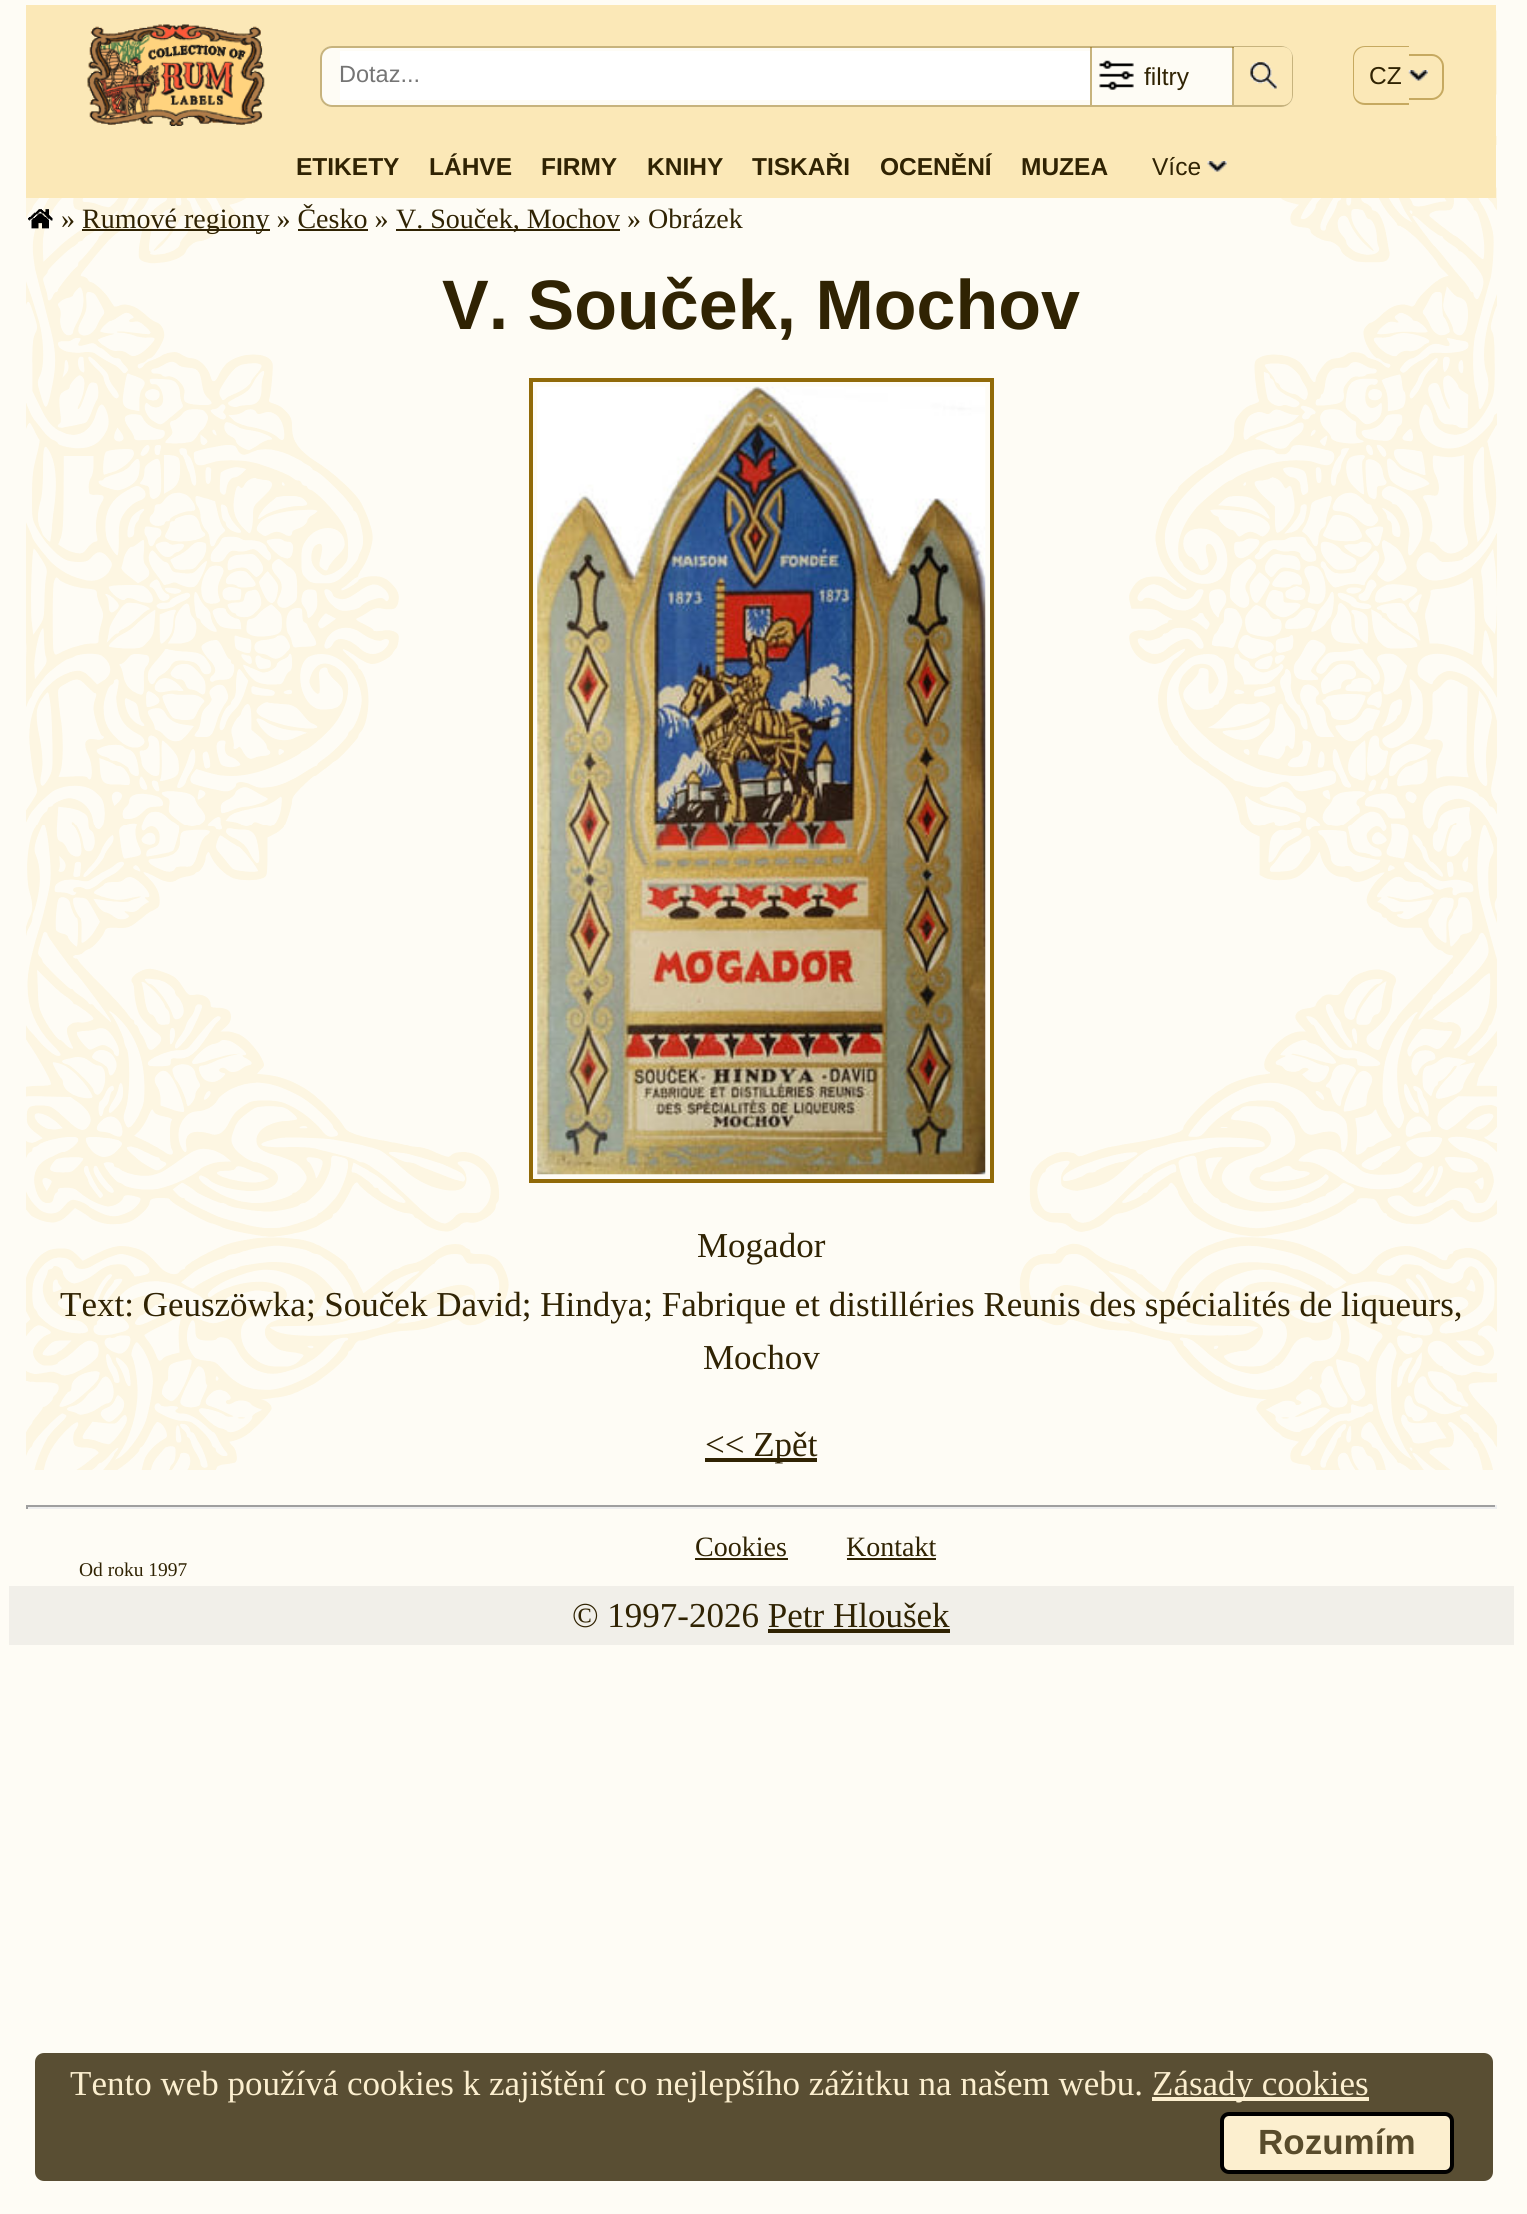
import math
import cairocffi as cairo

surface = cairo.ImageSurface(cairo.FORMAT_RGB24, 1527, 2214)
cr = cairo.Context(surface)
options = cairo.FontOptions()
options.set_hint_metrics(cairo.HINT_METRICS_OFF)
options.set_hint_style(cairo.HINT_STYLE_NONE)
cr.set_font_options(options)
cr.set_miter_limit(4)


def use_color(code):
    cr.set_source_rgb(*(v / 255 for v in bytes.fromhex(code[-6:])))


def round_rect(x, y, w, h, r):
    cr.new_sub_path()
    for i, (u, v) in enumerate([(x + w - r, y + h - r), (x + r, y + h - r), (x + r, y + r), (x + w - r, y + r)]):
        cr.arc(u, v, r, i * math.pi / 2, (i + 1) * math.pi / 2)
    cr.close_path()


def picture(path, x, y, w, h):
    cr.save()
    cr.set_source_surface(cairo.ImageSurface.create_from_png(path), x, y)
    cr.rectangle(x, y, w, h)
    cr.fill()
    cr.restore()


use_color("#fefcf5")
cr.paint()
picture("img1.png", 26, 29, 1471, 1441)
use_color("#fbe8b7")
cr.rectangle(26, 5, 1470, 193)
cr.fill()
picture("img2.png", 87, 24, 178, 102)
use_color("#fefcf5")
round_rect(320, 46, 973, 61, 12)
cr.fill()
round_rect(321, 47, 971, 59, 11)
cr.set_source_rgba(0.569, 0.416, 0.031, 0.5)
cr.stroke()
use_color("#ffffff")
cr.rectangle(340, 51, 750, 49)
cr.fill()
cr.select_font_face("Liberation Sans")
cr.set_font_size(23.5)
use_color("#757575")
cr.move_to(339, 82)
cr.show_text("Dotaz...")
cr.set_source_rgba(0.569, 0.416, 0.031, 0.5)
cr.rectangle(1232, 47, 2, 58)
cr.fill()
cr.rectangle(1090, 47, 2, 58)
cr.fill()
picture("img3.png", 1099, 60, 35, 30)
cr.set_font_size(24.5)
use_color("#302303")
cr.move_to(1144, 85)
cr.show_text("filtry")
use_color("#fbe8b7")
cr.new_path()
cr.move_to(1234, 47)
cr.line_to(1283, 47)
cr.curve_to(1288, 47, 1292, 51, 1292, 56)
cr.line_to(1292, 96)
cr.curve_to(1292, 101, 1288, 105, 1283, 105)
cr.line_to(1234, 105)
cr.close_path()
cr.fill()
picture("img4.png", 1250, 62, 27, 27)
use_color("#c6a960")
cr.set_fill_rule(cairo.FILL_RULE_EVEN_ODD)
cr.new_path()
cr.move_to(1365, 46)
cr.line_to(1409, 46)
cr.line_to(1409, 105)
cr.line_to(1365, 105)
cr.curve_to(1358, 105, 1353, 100, 1353, 93)
cr.line_to(1353, 58)
cr.curve_to(1353, 51, 1358, 46, 1365, 46)
cr.close_path()
cr.move_to(1365, 47)
cr.line_to(1409, 47)
cr.line_to(1409, 103)
cr.line_to(1365, 103)
cr.curve_to(1359, 103, 1354, 99, 1354, 93)
cr.line_to(1354, 58)
cr.curve_to(1354, 52, 1359, 47, 1365, 47)
cr.close_path()
cr.fill()
use_color("#302303")
cr.move_to(1369, 84)
cr.show_text("CZ")
use_color("#c6a960")
cr.new_path()
cr.move_to(1409, 54)
cr.line_to(1432, 54)
cr.curve_to(1438, 54, 1444, 60, 1444, 66)
cr.line_to(1444, 88)
cr.curve_to(1444, 94, 1438, 100, 1432, 100)
cr.line_to(1409, 100)
cr.close_path()
cr.move_to(1409, 56)
cr.line_to(1432, 56)
cr.curve_to(1437, 56, 1442, 61, 1442, 66)
cr.line_to(1442, 88)
cr.curve_to(1442, 93, 1437, 98, 1432, 98)
cr.line_to(1409, 98)
cr.close_path()
cr.fill()
picture("img5.png", 1408, 70, 20, 11)
cr.select_font_face("Liberation Sans", cairo.FONT_SLANT_NORMAL, cairo.FONT_WEIGHT_BOLD)
use_color("#302303")
cr.move_to(296, 175)
cr.show_text("ETIKETY")
cr.move_to(429, 175)
cr.show_text("LÁHVE")
cr.move_to(541, 175)
cr.show_text("FIRMY")
cr.move_to(647, 175)
cr.show_text("KNIHY")
cr.move_to(752, 175)
cr.show_text("TISKAŘI")
cr.move_to(880, 175)
cr.show_text("OCENĚNÍ")
cr.move_to(1021, 175)
cr.show_text("MUZEA")
cr.select_font_face("Liberation Sans")
cr.move_to(1152, 175)
cr.show_text("Více")
picture("img6.png", 1207, 161, 20, 11)
picture("img7.png", 28, 209, 25, 20)
cr.select_font_face("Liberation Serif")
cr.set_font_size(28)
cr.move_to(61, 228)
cr.show_text("»")
cr.rectangle(82, 229, 188, 2)
cr.fill()
cr.move_to(82, 228)
cr.show_text("Rumové regiony » Česko »")
cr.rectangle(396, 229, 224, 2)
cr.fill()
cr.move_to(396, 228)
cr.show_text("V. Souček, Mochov » Obrázek")
cr.rectangle(298, 229, 70, 2)
cr.fill()
cr.select_font_face("Liberation Sans", cairo.FONT_SLANT_NORMAL, cairo.FONT_WEIGHT_BOLD)
cr.set_font_size(70)
cr.move_to(442, 329)
cr.show_text("V. Souček, Mochov")
cr.rectangle(531, 380, 461, 801)
use_color("#916a08")
cr.set_line_width(4)
cr.stroke()
picture("img8.png", 537, 386, 449, 789)
cr.select_font_face("Liberation Serif")
cr.set_font_size(35)
use_color("#302303")
cr.move_to(697, 1257)
cr.show_text("Mogador")
cr.move_to(60, 1316)
cr.show_text("Text: Geuszöwka; Souček David; Hindya; Fabrique et distilléries Reunis des spécialités de liqueurs,")
cr.move_to(703, 1369)
cr.show_text("Mochov")
cr.rectangle(705, 1458, 112, 4)
cr.fill()
cr.move_to(705, 1456)
cr.show_text("<< Zpět")
use_color("#9f9f9f")
cr.rectangle(26, 1505, 1470, 2)
cr.fill()
use_color("#eeeeee")
cr.rectangle(1495, 1505, 2, 4)
cr.fill()
cr.rectangle(26, 1507, 1470, 2)
cr.fill()
use_color("#9f9f9f")
cr.rectangle(26, 1505, 2, 4)
cr.fill()
cr.set_font_size(28)
use_color("#302303")
cr.move_to(695, 1556)
cr.show_text("Cookies")
cr.rectangle(695, 1558, 93, 2)
cr.fill()
cr.move_to(846, 1556)
cr.show_text("Kontakt")
cr.rectangle(847, 1558, 89, 2)
cr.fill()
cr.set_font_size(19.5)
cr.move_to(79, 1576)
cr.show_text("Od roku 1997")
use_color("#f1efe9")
cr.rectangle(9, 1586, 1505, 59)
cr.fill()
cr.set_font_size(35)
use_color("#302303")
cr.move_to(572, 1627)
cr.show_text("© 1997-2026 Petr Hloušek")
cr.rectangle(768, 1629, 182, 4)
cr.fill()
use_color("#594e33")
round_rect(35, 2053, 1458, 128, 9)
cr.fill()
use_color("#fcefcf")
cr.move_to(70, 2095)
cr.show_text("Tento web používá cookies k zajištění co nejlepšího zážitku na našem webu.")
cr.rectangle(1152, 2097, 217, 4)
cr.fill()
cr.move_to(1152, 2095)
cr.show_text("Zásady cookies")
round_rect(1222, 2114, 230, 58, 7)
cr.fill_preserve()
use_color("#000000")
cr.stroke()
cr.select_font_face("Liberation Sans", cairo.FONT_SLANT_NORMAL, cairo.FONT_WEIGHT_BOLD)
use_color("#594c2c")
cr.move_to(1258, 2154)
cr.show_text("Rozumím")
surface.write_to_png("result.png")
